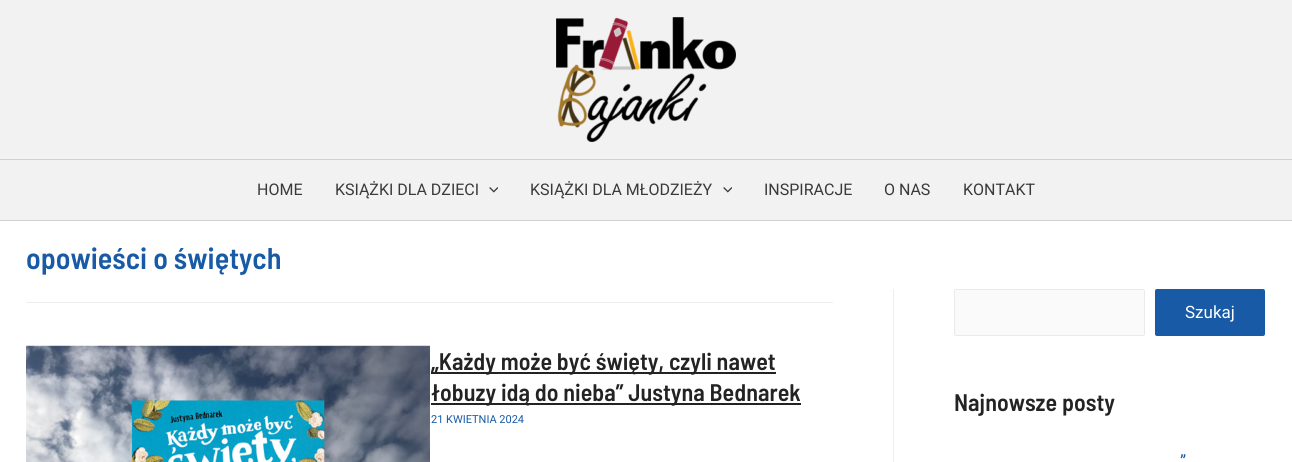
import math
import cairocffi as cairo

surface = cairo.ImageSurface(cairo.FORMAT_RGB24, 1292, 462)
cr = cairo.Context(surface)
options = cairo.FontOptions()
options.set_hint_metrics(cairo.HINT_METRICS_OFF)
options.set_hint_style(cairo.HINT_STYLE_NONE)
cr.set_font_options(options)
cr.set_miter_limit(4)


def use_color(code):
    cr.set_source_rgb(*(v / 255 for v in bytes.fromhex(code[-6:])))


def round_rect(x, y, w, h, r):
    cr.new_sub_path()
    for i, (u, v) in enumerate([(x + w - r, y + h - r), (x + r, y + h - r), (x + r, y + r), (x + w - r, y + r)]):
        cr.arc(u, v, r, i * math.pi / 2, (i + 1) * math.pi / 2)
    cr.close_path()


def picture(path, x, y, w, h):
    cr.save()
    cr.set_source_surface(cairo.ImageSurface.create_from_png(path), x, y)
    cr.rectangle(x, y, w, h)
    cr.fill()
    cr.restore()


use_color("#ffffff")
cr.paint()
use_color("#f2f2f2")
cr.rectangle(0, 0, 1292, 159)
cr.fill()
use_color("#d1d1d1")
cr.rectangle(0, 159, 1292, 1)
cr.fill()
picture("img1.png", 556, 17, 180, 125)
use_color("#f2f2f2")
cr.rectangle(0, 160, 1292, 60)
cr.fill()
use_color("#d1d1d1")
cr.rectangle(0, 220, 1292, 1)
cr.fill()
cr.select_font_face("Roboto")
cr.set_font_size(16)
use_color("#3a3a3a")
cr.move_to(257, 195)
cr.show_text("HOME")
cr.move_to(335, 195)
cr.show_text("KSIĄŻKI DLA DZIECI")
picture("img2.png", 489, 187, 9, 6)
cr.move_to(530, 195)
cr.show_text("KSIĄŻKI DLA MŁODZIEŻY")
picture("img2.png", 723, 187, 9, 6)
cr.move_to(764, 195)
cr.show_text("INSPIRACJE")
cr.move_to(884, 195)
cr.show_text("O NAS")
cr.move_to(963, 195)
cr.show_text("KONTAKT")
use_color("#eeeeee")
cr.rectangle(893, 289, 1, 173)
cr.fill()
cr.rectangle(26, 302, 807, 1)
cr.fill()
cr.select_font_face("Barlow Semi Condensed SemiBold")
cr.set_font_size(30)
use_color("#185aa5")
cr.move_to(26, 269)
cr.show_text("opowieści o świętych")
picture("img3.png", 26, 345, 404, 117)
use_color("#232323")
cr.rectangle(431, 372, 345, 2)
cr.fill()
cr.set_font_size(24)
cr.move_to(431, 370)
cr.show_text("„Każdy może być święty, czyli nawet")
cr.rectangle(431, 403, 370, 2)
cr.fill()
cr.move_to(431, 401)
cr.show_text("łobuzy idą do nieba” Justyna Bednarek")
cr.select_font_face("Roboto")
cr.set_font_size(11)
use_color("#185aa5")
cr.move_to(431, 423)
cr.show_text("21 KWIETNIA 2024")
use_color("#fafafa")
round_rect(954.5, 289.5, 190, 46, 1.5)
cr.fill_preserve()
use_color("#eaeaea")
cr.set_line_width(1)
cr.stroke()
use_color("#185aa5")
round_rect(1155, 289, 110, 47, 2)
cr.fill()
cr.set_font_size(17)
use_color("#ffffff")
cr.move_to(1185, 318)
cr.show_text("Szukaj")
cr.select_font_face("Barlow Semi Condensed SemiBold")
cr.set_font_size(24)
use_color("#232323")
cr.move_to(954, 411)
cr.show_text("Najnowsze posty")
cr.select_font_face("Roboto")
cr.set_font_size(17)
use_color("#185aa5")
cr.move_to(1180, 467)
cr.show_text("”")
surface.write_to_png("result.png")
